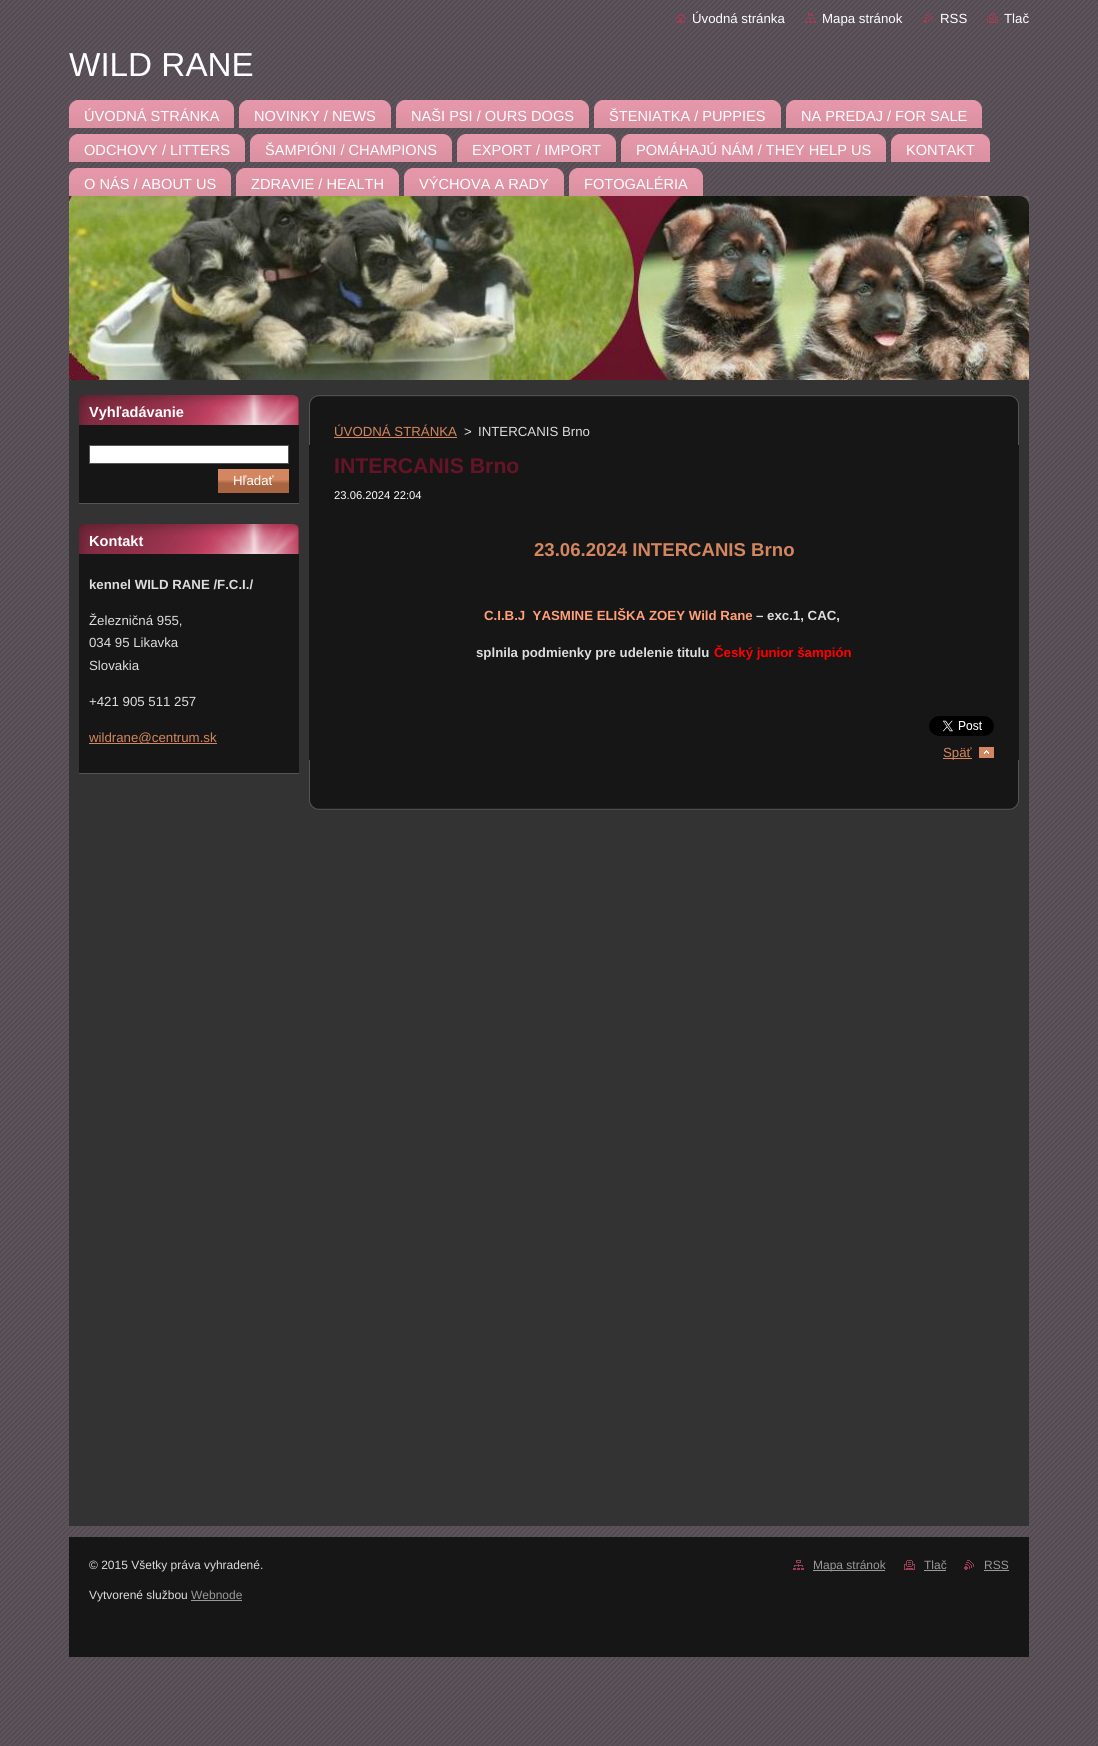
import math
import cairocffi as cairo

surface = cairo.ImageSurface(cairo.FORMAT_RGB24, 1098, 1746)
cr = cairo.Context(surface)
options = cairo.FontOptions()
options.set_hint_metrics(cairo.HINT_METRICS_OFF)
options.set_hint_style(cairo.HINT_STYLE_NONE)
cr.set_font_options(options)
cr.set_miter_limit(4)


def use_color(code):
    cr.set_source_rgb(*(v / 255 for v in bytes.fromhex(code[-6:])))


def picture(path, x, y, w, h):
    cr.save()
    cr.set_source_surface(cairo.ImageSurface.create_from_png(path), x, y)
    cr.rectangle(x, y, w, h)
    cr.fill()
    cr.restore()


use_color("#ffffff")
cr.paint()
picture("img1.png", 0, 0, 1098, 1746)
use_color("#333333")
cr.rectangle(69, 380, 960, 1146)
cr.fill()
picture("img2.png", 675, 13, 11, 10)
cr.select_font_face("Liberation Sans")
cr.set_font_size(13.25)
use_color("#ffffff")
cr.move_to(692, 23)
cr.show_text("Úvodná stránka")
picture("img3.png", 805, 13, 11, 10)
cr.move_to(822, 23)
cr.show_text("Mapa stránok")
picture("img4.png", 923, 13, 10, 10)
cr.move_to(940, 23)
cr.show_text("RSS")
picture("img5.png", 987, 13, 11, 10)
cr.move_to(1004, 23)
cr.show_text("Tlač")
cr.set_font_size(33.25)
cr.move_to(69, 76)
cr.show_text("WILD RANE")
picture("img6.png", 69, 100, 165, 28)
picture("img7.png", 69, 100, 8, 8)
picture("img8.png", 226, 100, 8, 8)
cr.set_font_size(14.6)
cr.move_to(84, 121)
cr.show_text("ÚVODNÁ STRÁNKA")
picture("img9.png", 239, 100, 152, 28)
picture("img7.png", 239, 100, 8, 8)
picture("img8.png", 383, 100, 8, 8)
cr.move_to(254, 121)
cr.show_text("NOVINKY / NEWS")
picture("img10.png", 396, 100, 193, 28)
picture("img7.png", 396, 100, 8, 8)
picture("img8.png", 581, 100, 8, 8)
cr.move_to(411, 121)
cr.show_text("NAŠI PSI / OURS DOGS")
picture("img11.png", 594, 100, 187, 28)
picture("img7.png", 594, 100, 8, 8)
picture("img8.png", 773, 100, 8, 8)
cr.move_to(609, 121)
cr.show_text("ŠTENIATKA / PUPPIES")
picture("img12.png", 786, 100, 196, 28)
picture("img7.png", 786, 100, 8, 8)
picture("img8.png", 974, 100, 8, 8)
cr.move_to(801, 121)
cr.show_text("NA PREDAJ / FOR SALE")
picture("img13.png", 69, 134, 176, 28)
picture("img7.png", 69, 134, 8, 8)
picture("img8.png", 237, 134, 8, 8)
cr.move_to(84, 155)
cr.show_text("ODCHOVY / LITTERS")
picture("img14.png", 250, 134, 202, 28)
picture("img7.png", 250, 134, 8, 8)
picture("img8.png", 444, 134, 8, 8)
cr.move_to(265, 155)
cr.show_text("ŠAMPIÓNI / CHAMPIONS")
picture("img15.png", 457, 134, 159, 28)
picture("img7.png", 457, 134, 8, 8)
picture("img8.png", 608, 134, 8, 8)
cr.move_to(472, 155)
cr.show_text("EXPORT / IMPORT")
picture("img16.png", 621, 134, 265, 28)
picture("img7.png", 621, 134, 8, 8)
picture("img8.png", 878, 134, 8, 8)
cr.move_to(636, 155)
cr.show_text("POMÁHAJÚ NÁM / THEY HELP US")
picture("img17.png", 891, 134, 99, 28)
picture("img7.png", 891, 134, 8, 8)
picture("img8.png", 982, 134, 8, 8)
cr.move_to(906, 155)
cr.show_text("KONTAKT")
picture("img18.png", 69, 168, 162, 28)
picture("img7.png", 69, 168, 8, 8)
picture("img8.png", 223, 168, 8, 8)
cr.move_to(84, 189)
cr.show_text("O NÁS / ABOUT US")
picture("img19.png", 236, 168, 163, 28)
picture("img7.png", 236, 168, 8, 8)
picture("img8.png", 391, 168, 8, 8)
cr.move_to(251, 189)
cr.show_text("ZDRAVIE / HEALTH")
picture("img20.png", 404, 168, 160, 28)
picture("img7.png", 404, 168, 8, 8)
picture("img8.png", 556, 168, 8, 8)
cr.move_to(419, 189)
cr.show_text("VÝCHOVA A RADY")
picture("img21.png", 569, 168, 134, 28)
picture("img7.png", 569, 168, 8, 8)
picture("img8.png", 695, 168, 8, 8)
cr.move_to(584, 189)
cr.show_text("FOTOGALÉRIA")
picture("img22.png", 69, 196, 960, 184)
picture("img23.png", 1020, 196, 9, 9)
use_color("#161616")
cr.rectangle(79, 425, 220, 78)
cr.fill()
use_color("#555555")
cr.rectangle(79, 503, 220, 1)
cr.fill()
picture("img24.png", 79, 395, 220, 30)
cr.select_font_face("Liberation Sans", cairo.FONT_SLANT_NORMAL, cairo.FONT_WEIGHT_BOLD)
use_color("#ffffff")
cr.move_to(89, 417)
cr.show_text("Vyhľadávanie")
cr.rectangle(89.5, 445.5, 199, 18)
cr.fill_preserve()
use_color("#555555")
cr.set_line_width(1)
cr.stroke()
picture("img25.png", 218, 469, 71, 24)
cr.select_font_face("Liberation Sans")
cr.set_font_size(13.25)
use_color("#ffffff")
cr.move_to(233, 485)
cr.show_text("Hľadať")
use_color("#161616")
cr.rectangle(79, 554, 220, 219)
cr.fill()
use_color("#555555")
cr.rectangle(79, 773, 220, 1)
cr.fill()
picture("img24.png", 79, 524, 220, 30)
cr.select_font_face("Liberation Sans", cairo.FONT_SLANT_NORMAL, cairo.FONT_WEIGHT_BOLD)
cr.set_font_size(14.6)
use_color("#ffffff")
cr.move_to(89, 546)
cr.show_text("Kontakt")
cr.set_font_size(13.25)
use_color("#dddddd")
cr.move_to(89, 589)
cr.show_text("kennel WILD RANE /F.C.I./")
cr.select_font_face("Liberation Sans")
cr.move_to(89, 625)
cr.show_text("Železničná 955,")
cr.move_to(89, 647)
cr.show_text("034 95 Likavka")
cr.move_to(89, 670)
cr.show_text("Slovakia")
cr.move_to(89, 706)
cr.show_text("+421 905 511 257")
use_color("#d3865f")
cr.rectangle(89, 743, 128, 1)
cr.fill()
cr.move_to(89, 742)
cr.show_text("wildrane@centrum.sk")
picture("img26.png", 309, 395, 710, 50)
picture("img27.png", 309, 760, 710, 50)
use_color("#161616")
cr.rectangle(309, 445, 710, 315)
cr.fill()
use_color("#d3865f")
cr.move_to(334, 436)
cr.show_text("ÚVODNÁ STRÁNKA")
cr.rectangle(334, 437, 123, 1)
cr.fill()
use_color("#dddddd")
cr.move_to(464, 436)
cr.show_text(">")
cr.move_to(478, 436)
cr.show_text("INTERCANIS Brno")
cr.select_font_face("Liberation Sans", cairo.FONT_SLANT_NORMAL, cairo.FONT_WEIGHT_BOLD)
cr.set_font_size(21.25)
use_color("#651427")
cr.move_to(334, 473)
cr.show_text("INTERCANIS Brno")
cr.select_font_face("Liberation Sans")
cr.set_font_size(11.25)
use_color("#ffffff")
cr.move_to(334, 499)
cr.show_text("23.06.2024 22:04")
cr.select_font_face("Liberation Sans", cairo.FONT_SLANT_NORMAL, cairo.FONT_WEIGHT_BOLD)
cr.set_font_size(18.6)
use_color("#d3865f")
cr.move_to(534, 556)
cr.show_text("23.06.2024 INTERCANIS Brno")
cr.set_font_size(13.25)
use_color("#ffa07a")
cr.move_to(484, 620)
cr.show_text("C.I.B.J  YASMINE ELIŠKA ZOEY Wild Rane")
use_color("#dddddd")
cr.move_to(756, 620)
cr.show_text("– exc.1, CAC,")
cr.move_to(476, 657)
cr.show_text("splnila podmienky pre udelenie titulu")
use_color("#ff0000")
cr.move_to(714, 657)
cr.show_text("Český junior šampión")
picture("img28.png", 929, 716, 65, 20)
picture("img29.png", 979, 747, 15, 11)
use_color("#d3865f")
cr.rectangle(943, 758, 29, 1)
cr.fill()
cr.select_font_face("Liberation Sans")
cr.move_to(943, 757)
cr.show_text("Späť")
use_color("#161616")
cr.rectangle(69, 1537, 960, 120)
cr.fill()
cr.set_font_size(12)
use_color("#dddddd")
cr.move_to(89, 1569)
cr.show_text("© 2015 Všetky práva vyhradené.")
cr.move_to(89, 1599)
cr.show_text("Vytvorené službou")
use_color("#999999")
cr.move_to(191, 1599)
cr.show_text("Webnode")
cr.rectangle(191, 1600, 51, 1)
cr.fill()
picture("img30.png", 793, 1560, 11, 10)
cr.rectangle(813, 1570, 72, 1)
cr.fill()
cr.move_to(813, 1569)
cr.show_text("Mapa stránok")
picture("img31.png", 904, 1560, 11, 10)
cr.move_to(924, 1569)
cr.show_text("Tlač")
cr.rectangle(924, 1570, 22, 1)
cr.fill()
picture("img32.png", 964, 1560, 10, 10)
cr.move_to(984, 1569)
cr.show_text("RSS")
cr.rectangle(984, 1570, 25, 1)
cr.fill()
surface.write_to_png("result.png")
